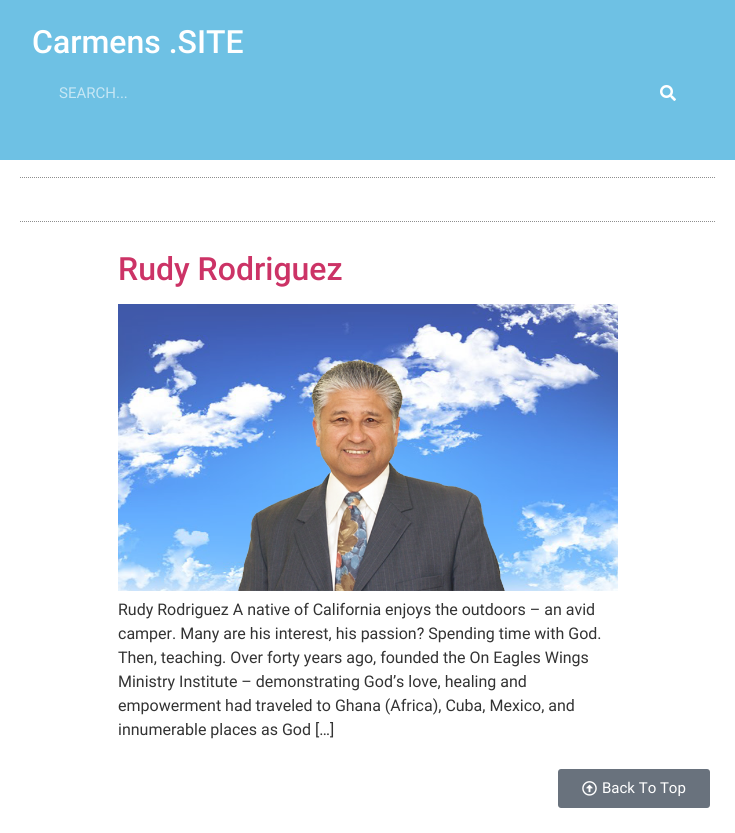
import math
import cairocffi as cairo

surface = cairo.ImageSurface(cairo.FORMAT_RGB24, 735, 833)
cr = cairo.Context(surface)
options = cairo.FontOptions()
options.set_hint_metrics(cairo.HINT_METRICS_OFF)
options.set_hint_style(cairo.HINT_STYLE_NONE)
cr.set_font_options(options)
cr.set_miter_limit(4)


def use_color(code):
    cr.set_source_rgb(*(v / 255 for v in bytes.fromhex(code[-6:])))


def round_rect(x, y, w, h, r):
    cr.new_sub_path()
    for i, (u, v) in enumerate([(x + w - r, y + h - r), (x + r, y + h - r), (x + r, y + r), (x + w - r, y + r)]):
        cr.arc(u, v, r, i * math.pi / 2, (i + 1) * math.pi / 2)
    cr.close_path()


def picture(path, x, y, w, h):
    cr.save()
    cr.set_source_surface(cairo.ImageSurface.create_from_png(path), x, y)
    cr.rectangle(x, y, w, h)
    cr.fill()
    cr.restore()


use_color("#ffffff")
cr.paint()
use_color("#6ec1e4")
cr.rectangle(0, 0, 735, 160)
cr.fill()
cr.select_font_face("Roboto Medium")
cr.set_font_size(32)
use_color("#ffffff")
cr.move_to(32, 53)
cr.show_text("Carmens .SITE")
cr.select_font_face("Roboto")
cr.set_font_size(15)
use_color("#c5e6f4")
cr.move_to(59, 98)
cr.show_text("SEARCH...")
picture("img1.png", 660, 85, 16, 16)
cr.new_path()
cr.move_to(20, 177.5)
cr.line_to(715, 177.5)
use_color("#8e8e8e")
cr.set_line_width(1)
cr.set_dash([1, 1])
cr.stroke()
cr.new_path()
cr.move_to(20, 221.5)
cr.line_to(715, 221.5)
cr.stroke()
cr.select_font_face("Roboto Medium")
cr.set_font_size(32)
use_color("#cc3366")
cr.move_to(118, 280)
cr.show_text("Rudy Rodriguez")
picture("img2.png", 118, 304, 500, 287)
cr.select_font_face("Roboto")
cr.set_font_size(16)
use_color("#333333")
cr.move_to(118, 615)
cr.show_text("Rudy Rodriguez A native of California enjoys the outdoors – an avid")
cr.move_to(118, 639)
cr.show_text("camper. Many are his interest, his passion? Spending time with God.")
cr.move_to(118, 663)
cr.show_text("Then, teaching. Over forty years ago, founded the On Eagles Wings")
cr.move_to(118, 687)
cr.show_text("Ministry Institute – demonstrating God’s love, healing and")
cr.move_to(118, 711)
cr.show_text("empowerment had traveled to Ghana (Africa), Cuba, Mexico, and")
cr.move_to(118, 735)
cr.show_text("innumerable places as God […]")
use_color("#69727d")
round_rect(558, 769, 152, 39, 3)
cr.fill()
picture("img3.png", 582, 781, 15, 15)
cr.set_font_size(15)
use_color("#ffffff")
cr.move_to(602, 793)
cr.show_text("Back To Top")
surface.write_to_png("result.png")
